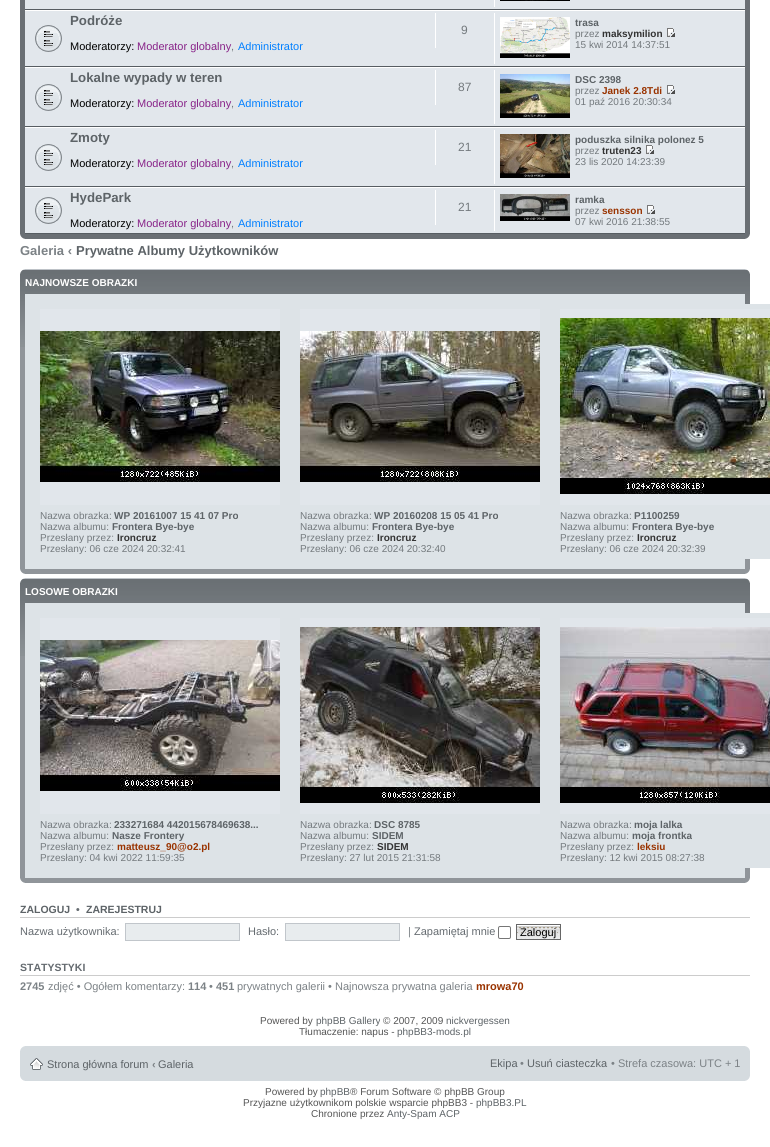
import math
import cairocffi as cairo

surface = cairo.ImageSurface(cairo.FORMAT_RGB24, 770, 1147)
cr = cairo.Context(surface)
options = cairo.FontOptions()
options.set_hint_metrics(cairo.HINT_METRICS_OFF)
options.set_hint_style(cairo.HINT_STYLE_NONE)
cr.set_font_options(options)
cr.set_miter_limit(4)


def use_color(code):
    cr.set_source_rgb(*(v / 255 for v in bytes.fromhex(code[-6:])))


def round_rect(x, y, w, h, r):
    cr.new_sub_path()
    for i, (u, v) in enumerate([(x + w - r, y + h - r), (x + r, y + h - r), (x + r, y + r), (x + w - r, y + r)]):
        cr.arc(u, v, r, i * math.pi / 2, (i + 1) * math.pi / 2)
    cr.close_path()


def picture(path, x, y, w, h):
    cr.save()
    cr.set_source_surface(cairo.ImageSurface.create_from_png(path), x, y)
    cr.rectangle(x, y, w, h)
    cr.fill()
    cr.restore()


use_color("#ffffff")
cr.paint()
use_color("#6a6f74")
cr.rectangle(20, 0, 730, 239)
cr.fill()
use_color("#e2e7ec")
cr.rectangle(25, 0, 720, 233)
cr.fill()
use_color("#575d62")
cr.rectangle(25, 9, 720, 1)
cr.fill()
use_color("#ffffff")
cr.rectangle(494, 0, 1, 7)
cr.fill()
picture("img1.png", 500, 0, 70, 1)
cr.rectangle(25, 10, 720, 1)
cr.fill()
use_color("#575d62")
cr.rectangle(25, 66, 720, 1)
cr.fill()
picture("img2.png", 35, 25, 27, 27)
cr.select_font_face("Liberation Sans", cairo.FONT_SLANT_NORMAL, cairo.FONT_WEIGHT_BOLD)
cr.set_font_size(13.25)
use_color("#5d6367")
cr.move_to(70, 25)
cr.show_text("Podróże")
cr.select_font_face("Liberation Sans")
cr.set_font_size(11)
use_color("#000000")
cr.move_to(70, 50)
cr.show_text("Moderatorzy:")
use_color("#882288")
cr.move_to(137, 50)
cr.show_text("Moderator globalny")
use_color("#73797d")
cr.move_to(231, 50)
cr.show_text(",")
use_color("#007fff")
cr.move_to(238, 50)
cr.show_text("Administrator")
use_color("#ffffff")
cr.rectangle(435, 13, 1, 35)
cr.fill()
cr.set_font_size(12)
use_color("#73797d")
cr.move_to(461, 34)
cr.show_text("9")
use_color("#ffffff")
cr.rectangle(494, 13, 1, 51)
cr.fill()
picture("img3.png", 500, 17, 70, 41)
cr.select_font_face("Liberation Sans", cairo.FONT_SLANT_NORMAL, cairo.FONT_WEIGHT_BOLD)
cr.set_font_size(10)
use_color("#5d6367")
cr.move_to(575, 26)
cr.show_text("trasa")
cr.select_font_face("Liberation Sans")
use_color("#73797d")
cr.move_to(575, 37)
cr.show_text("przez")
cr.select_font_face("Liberation Sans", cairo.FONT_SLANT_NORMAL, cairo.FONT_WEIGHT_BOLD)
use_color("#333333")
cr.move_to(602, 37)
cr.show_text("maksymilion")
picture("img4.png", 667, 28, 8, 9)
cr.select_font_face("Liberation Sans")
use_color("#73797d")
cr.move_to(575, 48)
cr.show_text("15 kwi 2014 14:37:51")
use_color("#ffffff")
cr.rectangle(25, 67, 720, 1)
cr.fill()
use_color("#575d62")
cr.rectangle(25, 126, 720, 1)
cr.fill()
picture("img2.png", 35, 84, 27, 27)
cr.select_font_face("Liberation Sans", cairo.FONT_SLANT_NORMAL, cairo.FONT_WEIGHT_BOLD)
cr.set_font_size(13.25)
use_color("#5d6367")
cr.move_to(70, 82)
cr.show_text("Lokalne wypady w teren")
cr.select_font_face("Liberation Sans")
cr.set_font_size(11)
use_color("#000000")
cr.move_to(70, 107)
cr.show_text("Moderatorzy:")
use_color("#882288")
cr.move_to(137, 107)
cr.show_text("Moderator globalny")
use_color("#73797d")
cr.move_to(231, 107)
cr.show_text(",")
use_color("#007fff")
cr.move_to(238, 107)
cr.show_text("Administrator")
use_color("#ffffff")
cr.rectangle(435, 70, 1, 35)
cr.fill()
cr.set_font_size(12)
use_color("#73797d")
cr.move_to(458, 91)
cr.show_text("87")
use_color("#ffffff")
cr.rectangle(494, 70, 1, 54)
cr.fill()
picture("img5.png", 500, 74, 70, 44)
cr.select_font_face("Liberation Sans", cairo.FONT_SLANT_NORMAL, cairo.FONT_WEIGHT_BOLD)
cr.set_font_size(10)
use_color("#5d6367")
cr.move_to(575, 83)
cr.show_text("DSC 2398")
cr.select_font_face("Liberation Sans")
use_color("#73797d")
cr.move_to(575, 94)
cr.show_text("przez")
cr.select_font_face("Liberation Sans", cairo.FONT_SLANT_NORMAL, cairo.FONT_WEIGHT_BOLD)
use_color("#993300")
cr.move_to(602, 94)
cr.show_text("Janek 2.8Tdi")
picture("img4.png", 667, 85, 8, 9)
cr.select_font_face("Liberation Sans")
use_color("#73797d")
cr.move_to(575, 105)
cr.show_text("01 paź 2016 20:30:34")
use_color("#ffffff")
cr.rectangle(25, 127, 720, 1)
cr.fill()
use_color("#575d62")
cr.rectangle(25, 186, 720, 1)
cr.fill()
picture("img2.png", 35, 144, 27, 27)
cr.select_font_face("Liberation Sans", cairo.FONT_SLANT_NORMAL, cairo.FONT_WEIGHT_BOLD)
cr.set_font_size(13.25)
use_color("#5d6367")
cr.move_to(70, 142)
cr.show_text("Zmoty")
cr.select_font_face("Liberation Sans")
cr.set_font_size(11)
use_color("#000000")
cr.move_to(70, 167)
cr.show_text("Moderatorzy:")
use_color("#882288")
cr.move_to(137, 167)
cr.show_text("Moderator globalny")
use_color("#73797d")
cr.move_to(231, 167)
cr.show_text(",")
use_color("#007fff")
cr.move_to(238, 167)
cr.show_text("Administrator")
use_color("#ffffff")
cr.rectangle(435, 130, 1, 35)
cr.fill()
cr.set_font_size(12)
use_color("#73797d")
cr.move_to(458, 151)
cr.show_text("21")
use_color("#ffffff")
cr.rectangle(494, 130, 1, 54)
cr.fill()
picture("img6.png", 500, 134, 70, 44)
cr.select_font_face("Liberation Sans", cairo.FONT_SLANT_NORMAL, cairo.FONT_WEIGHT_BOLD)
cr.set_font_size(10)
use_color("#5d6367")
cr.move_to(575, 143)
cr.show_text("poduszka silnika polonez 5")
cr.select_font_face("Liberation Sans")
use_color("#73797d")
cr.move_to(575, 154)
cr.show_text("przez")
cr.select_font_face("Liberation Sans", cairo.FONT_SLANT_NORMAL, cairo.FONT_WEIGHT_BOLD)
use_color("#333333")
cr.move_to(602, 154)
cr.show_text("truten23")
picture("img4.png", 646, 145, 8, 9)
cr.select_font_face("Liberation Sans")
use_color("#73797d")
cr.move_to(575, 165)
cr.show_text("23 lis 2020 14:23:39")
use_color("#ffffff")
cr.rectangle(25, 187, 720, 1)
cr.fill()
use_color("#575d62")
cr.rectangle(25, 233, 720, 1)
cr.fill()
picture("img2.png", 35, 197, 27, 27)
cr.select_font_face("Liberation Sans", cairo.FONT_SLANT_NORMAL, cairo.FONT_WEIGHT_BOLD)
cr.set_font_size(13.25)
use_color("#5d6367")
cr.move_to(70, 202)
cr.show_text("HydePark")
cr.select_font_face("Liberation Sans")
cr.set_font_size(11)
use_color("#000000")
cr.move_to(70, 227)
cr.show_text("Moderatorzy:")
use_color("#882288")
cr.move_to(137, 227)
cr.show_text("Moderator globalny")
use_color("#73797d")
cr.move_to(231, 227)
cr.show_text(",")
use_color("#007fff")
cr.move_to(238, 227)
cr.show_text("Administrator")
use_color("#ffffff")
cr.rectangle(435, 190, 1, 35)
cr.fill()
cr.set_font_size(12)
use_color("#73797d")
cr.move_to(458, 211)
cr.show_text("21")
use_color("#ffffff")
cr.rectangle(494, 190, 1, 41)
cr.fill()
picture("img7.png", 500, 194, 70, 27)
cr.select_font_face("Liberation Sans", cairo.FONT_SLANT_NORMAL, cairo.FONT_WEIGHT_BOLD)
cr.set_font_size(10)
use_color("#5d6367")
cr.move_to(575, 203)
cr.show_text("ramka")
cr.select_font_face("Liberation Sans")
use_color("#73797d")
cr.move_to(575, 214)
cr.show_text("przez")
cr.select_font_face("Liberation Sans", cairo.FONT_SLANT_NORMAL, cairo.FONT_WEIGHT_BOLD)
use_color("#993300")
cr.move_to(602, 214)
cr.show_text("sensson")
picture("img4.png", 647, 205, 8, 9)
cr.select_font_face("Liberation Sans")
use_color("#73797d")
cr.move_to(575, 225)
cr.show_text("07 kwi 2016 21:38:55")
picture("img8.png", 20, 234, 5, 5)
picture("img9.png", 745, 234, 5, 5)
cr.select_font_face("Liberation Sans", cairo.FONT_SLANT_NORMAL, cairo.FONT_WEIGHT_BOLD)
cr.set_font_size(13)
use_color("#7c8286")
cr.move_to(20, 255)
cr.show_text("Galeria ‹")
use_color("#5d6367")
cr.move_to(76, 255)
cr.show_text("Prywatne Albumy Użytkowników")
use_color("#90959a")
cr.rectangle(20, 347, 730, 227)
cr.fill()
picture("img10.png", 20, 269, 730, 78)
picture("img11.png", 20, 269, 5, 5)
picture("img12.png", 745, 269, 5, 5)
cr.set_font_size(10)
use_color("#ffffff")
cr.move_to(25, 286)
cr.show_text("NAJNOWSZE OBRAZKI")
use_color("#dde3e7")
cr.rectangle(25, 294, 720, 275)
cr.fill()
use_color("#e1e6eb")
cr.rectangle(40, 309, 240, 196)
cr.fill()
picture("img13.png", 40, 331, 240, 151)
cr.select_font_face("Liberation Sans")
use_color("#73797d")
cr.move_to(40, 519)
cr.show_text("Nazwa obrazka:")
cr.select_font_face("Liberation Sans", cairo.FONT_SLANT_NORMAL, cairo.FONT_WEIGHT_BOLD)
use_color("#5d6367")
cr.move_to(114, 519)
cr.show_text("WP 20161007 15 41 07 Pro")
cr.select_font_face("Liberation Sans")
use_color("#73797d")
cr.move_to(40, 530)
cr.show_text("Nazwa albumu:")
cr.select_font_face("Liberation Sans", cairo.FONT_SLANT_NORMAL, cairo.FONT_WEIGHT_BOLD)
use_color("#5d6367")
cr.move_to(112, 530)
cr.show_text("Frontera Bye-bye")
cr.select_font_face("Liberation Sans")
use_color("#73797d")
cr.move_to(40, 541)
cr.show_text("Przesłany przez:")
cr.select_font_face("Liberation Sans", cairo.FONT_SLANT_NORMAL, cairo.FONT_WEIGHT_BOLD)
use_color("#333333")
cr.move_to(117, 541)
cr.show_text("Ironcruz")
cr.select_font_face("Liberation Sans")
use_color("#73797d")
cr.move_to(40, 552)
cr.show_text("Przesłany: 06 cze 2024 20:32:41")
use_color("#e1e6eb")
cr.rectangle(300, 309, 240, 196)
cr.fill()
picture("img14.png", 300, 331, 240, 151)
use_color("#73797d")
cr.move_to(300, 519)
cr.show_text("Nazwa obrazka:")
cr.select_font_face("Liberation Sans", cairo.FONT_SLANT_NORMAL, cairo.FONT_WEIGHT_BOLD)
use_color("#5d6367")
cr.move_to(374, 519)
cr.show_text("WP 20160208 15 05 41 Pro")
cr.select_font_face("Liberation Sans")
use_color("#73797d")
cr.move_to(300, 530)
cr.show_text("Nazwa albumu:")
cr.select_font_face("Liberation Sans", cairo.FONT_SLANT_NORMAL, cairo.FONT_WEIGHT_BOLD)
use_color("#5d6367")
cr.move_to(372, 530)
cr.show_text("Frontera Bye-bye")
cr.select_font_face("Liberation Sans")
use_color("#73797d")
cr.move_to(300, 541)
cr.show_text("Przesłany przez:")
cr.select_font_face("Liberation Sans", cairo.FONT_SLANT_NORMAL, cairo.FONT_WEIGHT_BOLD)
use_color("#333333")
cr.move_to(377, 541)
cr.show_text("Ironcruz")
cr.select_font_face("Liberation Sans")
use_color("#73797d")
cr.move_to(300, 552)
cr.show_text("Przesłany: 06 cze 2024 20:32:40")
use_color("#dde3e7")
cr.rectangle(745, 304, 25, 255)
cr.fill()
use_color("#e1e6eb")
cr.rectangle(560, 309, 210, 196)
cr.fill()
picture("img15.png", 560, 318, 210, 176)
use_color("#73797d")
cr.move_to(560, 519)
cr.show_text("Nazwa obrazka:")
cr.select_font_face("Liberation Sans", cairo.FONT_SLANT_NORMAL, cairo.FONT_WEIGHT_BOLD)
use_color("#5d6367")
cr.move_to(634, 519)
cr.show_text("P1100259")
cr.select_font_face("Liberation Sans")
use_color("#73797d")
cr.move_to(560, 530)
cr.show_text("Nazwa albumu:")
cr.select_font_face("Liberation Sans", cairo.FONT_SLANT_NORMAL, cairo.FONT_WEIGHT_BOLD)
use_color("#5d6367")
cr.move_to(632, 530)
cr.show_text("Frontera Bye-bye")
cr.select_font_face("Liberation Sans")
use_color("#73797d")
cr.move_to(560, 541)
cr.show_text("Przesłany przez:")
cr.select_font_face("Liberation Sans", cairo.FONT_SLANT_NORMAL, cairo.FONT_WEIGHT_BOLD)
use_color("#333333")
cr.move_to(637, 541)
cr.show_text("Ironcruz")
cr.select_font_face("Liberation Sans")
use_color("#73797d")
cr.move_to(560, 552)
cr.show_text("Przesłany: 06 cze 2024 20:32:39")
picture("img16.png", 20, 569, 5, 5)
picture("img17.png", 745, 569, 5, 5)
use_color("#90959a")
cr.rectangle(20, 656, 730, 227)
cr.fill()
picture("img10.png", 20, 578, 730, 78)
picture("img11.png", 20, 578, 5, 5)
picture("img12.png", 745, 578, 5, 5)
cr.select_font_face("Liberation Sans", cairo.FONT_SLANT_NORMAL, cairo.FONT_WEIGHT_BOLD)
use_color("#ffffff")
cr.move_to(25, 595)
cr.show_text("LOSOWE OBRAZKI")
use_color("#dde3e7")
cr.rectangle(25, 603, 720, 275)
cr.fill()
use_color("#e1e6eb")
cr.rectangle(40, 618, 240, 196)
cr.fill()
picture("img18.png", 40, 640, 240, 151)
cr.select_font_face("Liberation Sans")
use_color("#73797d")
cr.move_to(40, 828)
cr.show_text("Nazwa obrazka:")
cr.select_font_face("Liberation Sans", cairo.FONT_SLANT_NORMAL, cairo.FONT_WEIGHT_BOLD)
use_color("#5d6367")
cr.move_to(114, 828)
cr.show_text("233271684 442015678469638...")
cr.select_font_face("Liberation Sans")
use_color("#73797d")
cr.move_to(40, 839)
cr.show_text("Nazwa albumu:")
cr.select_font_face("Liberation Sans", cairo.FONT_SLANT_NORMAL, cairo.FONT_WEIGHT_BOLD)
use_color("#5d6367")
cr.move_to(112, 839)
cr.show_text("Nasze Frontery")
cr.select_font_face("Liberation Sans")
use_color("#73797d")
cr.move_to(40, 850)
cr.show_text("Przesłany przez:")
cr.select_font_face("Liberation Sans", cairo.FONT_SLANT_NORMAL, cairo.FONT_WEIGHT_BOLD)
use_color("#993300")
cr.move_to(117, 850)
cr.show_text("matteusz_90@o2.pl")
cr.select_font_face("Liberation Sans")
use_color("#73797d")
cr.move_to(40, 861)
cr.show_text("Przesłany: 04 kwi 2022 11:59:35")
use_color("#e1e6eb")
cr.rectangle(300, 618, 240, 196)
cr.fill()
picture("img19.png", 300, 627, 240, 176)
use_color("#73797d")
cr.move_to(300, 828)
cr.show_text("Nazwa obrazka:")
cr.select_font_face("Liberation Sans", cairo.FONT_SLANT_NORMAL, cairo.FONT_WEIGHT_BOLD)
use_color("#5d6367")
cr.move_to(374, 828)
cr.show_text("DSC 8785")
cr.select_font_face("Liberation Sans")
use_color("#73797d")
cr.move_to(300, 839)
cr.show_text("Nazwa albumu:")
cr.select_font_face("Liberation Sans", cairo.FONT_SLANT_NORMAL, cairo.FONT_WEIGHT_BOLD)
use_color("#5d6367")
cr.move_to(372, 839)
cr.show_text("SIDEM")
cr.select_font_face("Liberation Sans")
use_color("#73797d")
cr.move_to(300, 850)
cr.show_text("Przesłany przez:")
cr.select_font_face("Liberation Sans", cairo.FONT_SLANT_NORMAL, cairo.FONT_WEIGHT_BOLD)
use_color("#333333")
cr.move_to(377, 850)
cr.show_text("SIDEM")
cr.select_font_face("Liberation Sans")
use_color("#73797d")
cr.move_to(300, 861)
cr.show_text("Przesłany: 27 lut 2015 21:31:58")
use_color("#dde3e7")
cr.rectangle(745, 613, 25, 255)
cr.fill()
use_color("#e1e6eb")
cr.rectangle(560, 618, 210, 196)
cr.fill()
picture("img20.png", 560, 627, 210, 176)
use_color("#73797d")
cr.move_to(560, 828)
cr.show_text("Nazwa obrazka:")
cr.select_font_face("Liberation Sans", cairo.FONT_SLANT_NORMAL, cairo.FONT_WEIGHT_BOLD)
use_color("#5d6367")
cr.move_to(634, 828)
cr.show_text("moja lalka")
cr.select_font_face("Liberation Sans")
use_color("#73797d")
cr.move_to(560, 839)
cr.show_text("Nazwa albumu:")
cr.select_font_face("Liberation Sans", cairo.FONT_SLANT_NORMAL, cairo.FONT_WEIGHT_BOLD)
use_color("#5d6367")
cr.move_to(632, 839)
cr.show_text("moja frontka")
cr.select_font_face("Liberation Sans")
use_color("#73797d")
cr.move_to(560, 850)
cr.show_text("Przesłany przez:")
cr.select_font_face("Liberation Sans", cairo.FONT_SLANT_NORMAL, cairo.FONT_WEIGHT_BOLD)
use_color("#993300")
cr.move_to(637, 850)
cr.show_text("leksiu")
cr.select_font_face("Liberation Sans")
use_color("#73797d")
cr.move_to(560, 861)
cr.show_text("Przesłany: 12 kwi 2015 08:27:38")
picture("img16.png", 20, 878, 5, 5)
picture("img17.png", 745, 878, 5, 5)
use_color("#cccccc")
cr.rectangle(20, 917, 730, 1)
cr.fill()
cr.select_font_face("Liberation Sans", cairo.FONT_SLANT_NORMAL, cairo.FONT_WEIGHT_BOLD)
cr.set_font_size(10.5)
use_color("#5d6367")
cr.move_to(20, 913)
cr.show_text("ZALOGUJ")
use_color("#656b70")
cr.move_to(76, 913)
cr.show_text("•")
use_color("#5d6367")
cr.move_to(86, 913)
cr.show_text("ZAREJESTRUJ")
cr.select_font_face("Liberation Sans")
cr.set_font_size(11)
use_color("#656b70")
cr.move_to(20, 935)
cr.show_text("Nazwa użytkownika:")
use_color("#e8ecee")
cr.rectangle(125.5, 923.5, 114, 17)
cr.fill_preserve()
use_color("#c1c6cb")
cr.set_line_width(1)
cr.stroke()
use_color("#656b70")
cr.move_to(248, 935)
cr.show_text("Hasło:")
use_color("#e8ecee")
cr.rectangle(285.5, 923.5, 114, 17)
cr.fill_preserve()
use_color("#c1c6cb")
cr.stroke()
use_color("#7c8286")
cr.move_to(408, 935)
cr.show_text("|")
use_color("#656b70")
cr.move_to(414, 935)
cr.show_text("Zapamiętaj mnie")
round_rect(498.5, 926.5, 12, 12, 1.5)
use_color("#767676")
cr.stroke()
picture("img21.png", 517, 925, 43, 14)
cr.rectangle(516.5, 924.5, 44, 15)
use_color("#666666")
cr.stroke()
use_color("#000000")
cr.move_to(520, 936)
cr.show_text("Zaloguj")
use_color("#cccccc")
cr.rectangle(20, 975, 730, 1)
cr.fill()
cr.select_font_face("Liberation Sans", cairo.FONT_SLANT_NORMAL, cairo.FONT_WEIGHT_BOLD)
cr.set_font_size(10.5)
use_color("#656b70")
cr.move_to(20, 971)
cr.show_text("STATYSTYKI")
cr.set_font_size(11)
use_color("#7c8286")
cr.move_to(20, 990)
cr.show_text("2745")
cr.select_font_face("Liberation Sans")
cr.move_to(48, 990)
cr.show_text("zdjęć • Ogółem komentarzy:")
cr.select_font_face("Liberation Sans", cairo.FONT_SLANT_NORMAL, cairo.FONT_WEIGHT_BOLD)
cr.move_to(188, 990)
cr.show_text("114")
cr.select_font_face("Liberation Sans")
cr.move_to(209, 990)
cr.show_text("•")
cr.select_font_face("Liberation Sans", cairo.FONT_SLANT_NORMAL, cairo.FONT_WEIGHT_BOLD)
cr.move_to(216, 990)
cr.show_text("451")
cr.select_font_face("Liberation Sans")
cr.move_to(237, 990)
cr.show_text("prywatnych galerii • Najnowsza prywatna galeria")
cr.select_font_face("Liberation Sans", cairo.FONT_SLANT_NORMAL, cairo.FONT_WEIGHT_BOLD)
use_color("#993300")
cr.move_to(476, 990)
cr.show_text("mrowa70")
cr.select_font_face("Liberation Sans")
cr.set_font_size(10)
use_color("#555555")
cr.move_to(260, 1024)
cr.show_text("Powered by")
use_color("#5d6367")
cr.move_to(316, 1024)
cr.show_text("phpBB Gallery")
use_color("#555555")
cr.move_to(383, 1024)
cr.show_text("© 2007, 2009")
use_color("#5d6367")
cr.move_to(446, 1024)
cr.show_text("nickvergessen")
use_color("#555555")
cr.move_to(299, 1035)
cr.show_text("Tłumaczenie: napus -")
use_color("#5d6367")
cr.move_to(397, 1035)
cr.show_text("phpBB3-mods.pl")
use_color("#d5dbdf")
cr.rectangle(20, 1046, 730, 35)
cr.fill()
picture("img22.png", 20, 1046, 5, 5)
picture("img23.png", 745, 1046, 5, 5)
picture("img24.png", 30, 1058, 13, 12)
cr.set_font_size(11)
use_color("#5d6367")
cr.move_to(47, 1068)
cr.show_text("Strona główna forum")
cr.select_font_face("Liberation Sans", cairo.FONT_SLANT_NORMAL, cairo.FONT_WEIGHT_BOLD)
use_color("#7c8286")
cr.move_to(152, 1068)
cr.show_text("‹")
cr.select_font_face("Liberation Sans")
use_color("#5d6367")
cr.move_to(158, 1068)
cr.show_text("Galeria")
cr.move_to(490, 1067)
cr.show_text("Ekipa")
use_color("#7c8286")
cr.move_to(520, 1067)
cr.show_text("•")
use_color("#5d6367")
cr.move_to(527, 1067)
cr.show_text("Usuń ciasteczka")
use_color("#7c8286")
cr.move_to(611, 1067)
cr.show_text("• Strefa czasowa: UTC + 1")
picture("img25.png", 20, 1076, 5, 5)
picture("img26.png", 745, 1076, 5, 5)
cr.set_font_size(10)
use_color("#555555")
cr.move_to(265, 1095)
cr.show_text("Powered by")
use_color("#5d6367")
cr.move_to(320, 1095)
cr.show_text("phpBB")
use_color("#555555")
cr.move_to(350, 1095)
cr.show_text("® Forum Software © phpBB Group")
cr.move_to(243, 1106)
cr.show_text("Przyjazne użytkownikom polskie wsparcie phpBB3 -")
use_color("#5d6367")
cr.move_to(476, 1106)
cr.show_text("phpBB3.PL")
use_color("#555555")
cr.move_to(311, 1117)
cr.show_text("Chronione przez")
use_color("#5d6367")
cr.move_to(387, 1117)
cr.show_text("Anty-Spam ACP")
surface.write_to_png("result.png")
